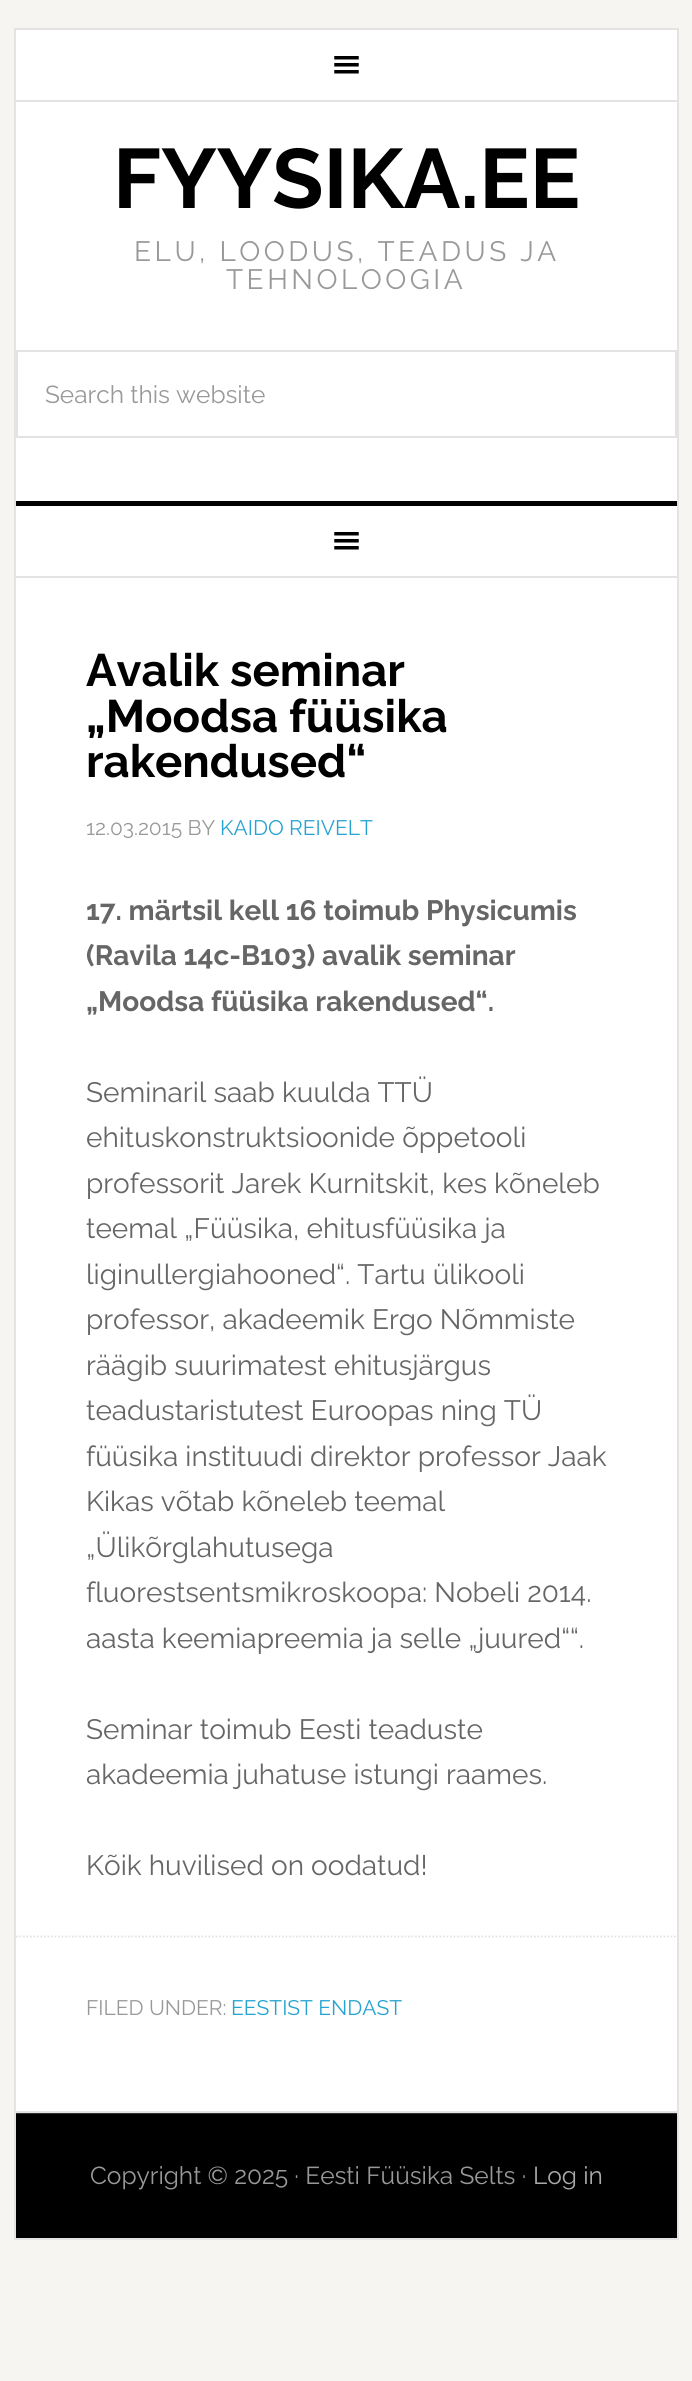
import math
import cairocffi as cairo

surface = cairo.ImageSurface(cairo.FORMAT_RGB24, 692, 2381)
cr = cairo.Context(surface)
options = cairo.FontOptions()
options.set_hint_metrics(cairo.HINT_METRICS_OFF)
options.set_hint_style(cairo.HINT_STYLE_NONE)
cr.set_font_options(options)
cr.set_miter_limit(4)


def use_color(code):
    cr.set_source_rgb(*(v / 255 for v in bytes.fromhex(code[-6:])))


def spaced_text(x, y, s, letter, word):
    cr.move_to(x, y)
    for ch in s:
        cr.show_text(ch)
        cr.rel_move_to(letter + word * (ch == ' '), 0)


def picture(path, x, y, w, h):
    cr.save()
    cr.set_source_surface(cairo.ImageSurface.create_from_png(path), x, y)
    cr.rectangle(x, y, w, h)
    cr.fill()
    cr.restore()


use_color("#f6f5f2")
cr.paint()
use_color("#ffffff")
cr.rectangle(16, 30, 661, 2081)
cr.fill()
cr.rectangle(15, 29, 663, 2210)
use_color("#e3e3e3")
cr.stroke()
cr.rectangle(16, 100, 661, 2)
cr.fill()
picture("img1.png", 334, 56, 25, 18)
use_color("#000000")
cr.rectangle(16, 501, 661, 5)
cr.fill()
cr.select_font_face("Raleway", cairo.FONT_SLANT_NORMAL, cairo.FONT_WEIGHT_BOLD)
cr.set_font_size(84)
cr.move_to(113, 208)
cr.show_text("FYYSIKA.EE")
cr.select_font_face("Raleway")
cr.set_font_size(28)
use_color("#999999")
spaced_text(134, 261, "ELU, LOODUS, TEADUS JA", 3.5, 0)
spaced_text(226, 289, "TEHNOLOOGIA", 3.5, 0)
cr.rectangle(17, 351, 659, 86)
use_color("#e3e3e3")
cr.stroke()
cr.set_font_size(24.5)
use_color("#999999")
cr.move_to(45, 403)
cr.show_text("Search this website")
use_color("#e3e3e3")
cr.rectangle(16, 576, 661, 2)
cr.fill()
picture("img1.png", 334, 532, 25, 18)
cr.rectangle(16, 2111, 661, 2)
cr.fill()
cr.select_font_face("Raleway", cairo.FONT_SLANT_NORMAL, cairo.FONT_WEIGHT_BOLD)
cr.set_font_size(45.5)
use_color("#000000")
cr.move_to(86, 686)
cr.show_text("Avalik seminar")
cr.move_to(86, 732)
cr.show_text("„Moodsa füüsika")
cr.move_to(86, 777)
cr.show_text("rakendused“")
cr.select_font_face("Raleway")
cr.set_font_size(21)
use_color("#999999")
cr.move_to(86, 835)
cr.show_text("12.03.2015 BY")
use_color("#27a3d1")
cr.move_to(220, 835)
cr.show_text("KAIDO REIVELT")
cr.select_font_face("Raleway", cairo.FONT_SLANT_NORMAL, cairo.FONT_WEIGHT_BOLD)
cr.set_font_size(28)
use_color("#666666")
cr.move_to(86, 920)
cr.show_text("17. märtsil kell 16 toimub Physicumis")
cr.move_to(86, 965)
cr.show_text("(Ravila 14c-B103) avalik seminar")
cr.move_to(86, 1011)
cr.show_text("„Moodsa füüsika rakendused“.")
cr.select_font_face("Raleway")
cr.move_to(86, 1102)
cr.show_text("Seminaril saab kuulda TTÜ")
cr.move_to(86, 1147)
cr.show_text("ehituskonstruktsioonide õppetooli")
cr.move_to(86, 1193)
cr.show_text("professorit Jarek Kurnitskit, kes kõneleb")
cr.move_to(86, 1238)
cr.show_text("teemal „Füüsika, ehitusfüüsika ja")
cr.move_to(86, 1284)
cr.show_text("liginullergiahooned“. Tartu ülikooli")
cr.move_to(86, 1329)
cr.show_text("professor, akadeemik Ergo Nõmmiste")
cr.move_to(86, 1375)
cr.show_text("räägib suurimatest ehitusjärgus")
cr.move_to(86, 1420)
cr.show_text("teadustaristutest Euroopas ning TÜ")
cr.move_to(86, 1466)
cr.show_text("füüsika instituudi direktor professor Jaak")
cr.move_to(86, 1511)
cr.show_text("Kikas võtab kõneleb teemal")
cr.move_to(86, 1557)
cr.show_text("„Ülikõrglahutusega")
cr.move_to(86, 1602)
cr.show_text("fluorestsentsmikroskoopa: Nobeli 2014.")
cr.move_to(86, 1648)
cr.show_text("aasta keemiapreemia ja selle „juured““.")
cr.move_to(86, 1739)
cr.show_text("Seminar toimub Eesti teaduste")
cr.move_to(86, 1784)
cr.show_text("akadeemia juhatuse istungi raames.")
cr.move_to(86, 1875)
cr.show_text("Kõik huvilised on oodatud!")
cr.new_path()
cr.move_to(16, 1936.5)
cr.line_to(677, 1936.5)
use_color("#e3e3e3")
cr.set_line_width(1.8)
cr.set_dash([1.75, 1.75])
cr.stroke()
cr.set_font_size(21)
use_color("#999999")
cr.move_to(86, 2015)
cr.show_text("FILED UNDER:")
use_color("#27a3d1")
cr.move_to(231, 2015)
cr.show_text("EESTIST ENDAST")
use_color("#000000")
cr.rectangle(16, 2114, 661, 124)
cr.fill()
use_color("#333333")
cr.rectangle(16, 2113, 661, 1)
cr.fill()
cr.set_font_size(24.5)
use_color("#999999")
cr.move_to(90, 2184)
cr.show_text("Copyright © 2025 · Eesti Füüsika Selts ·")
use_color("#aaaaaa")
cr.move_to(533, 2184)
cr.show_text("Log in")
surface.write_to_png("result.png")
